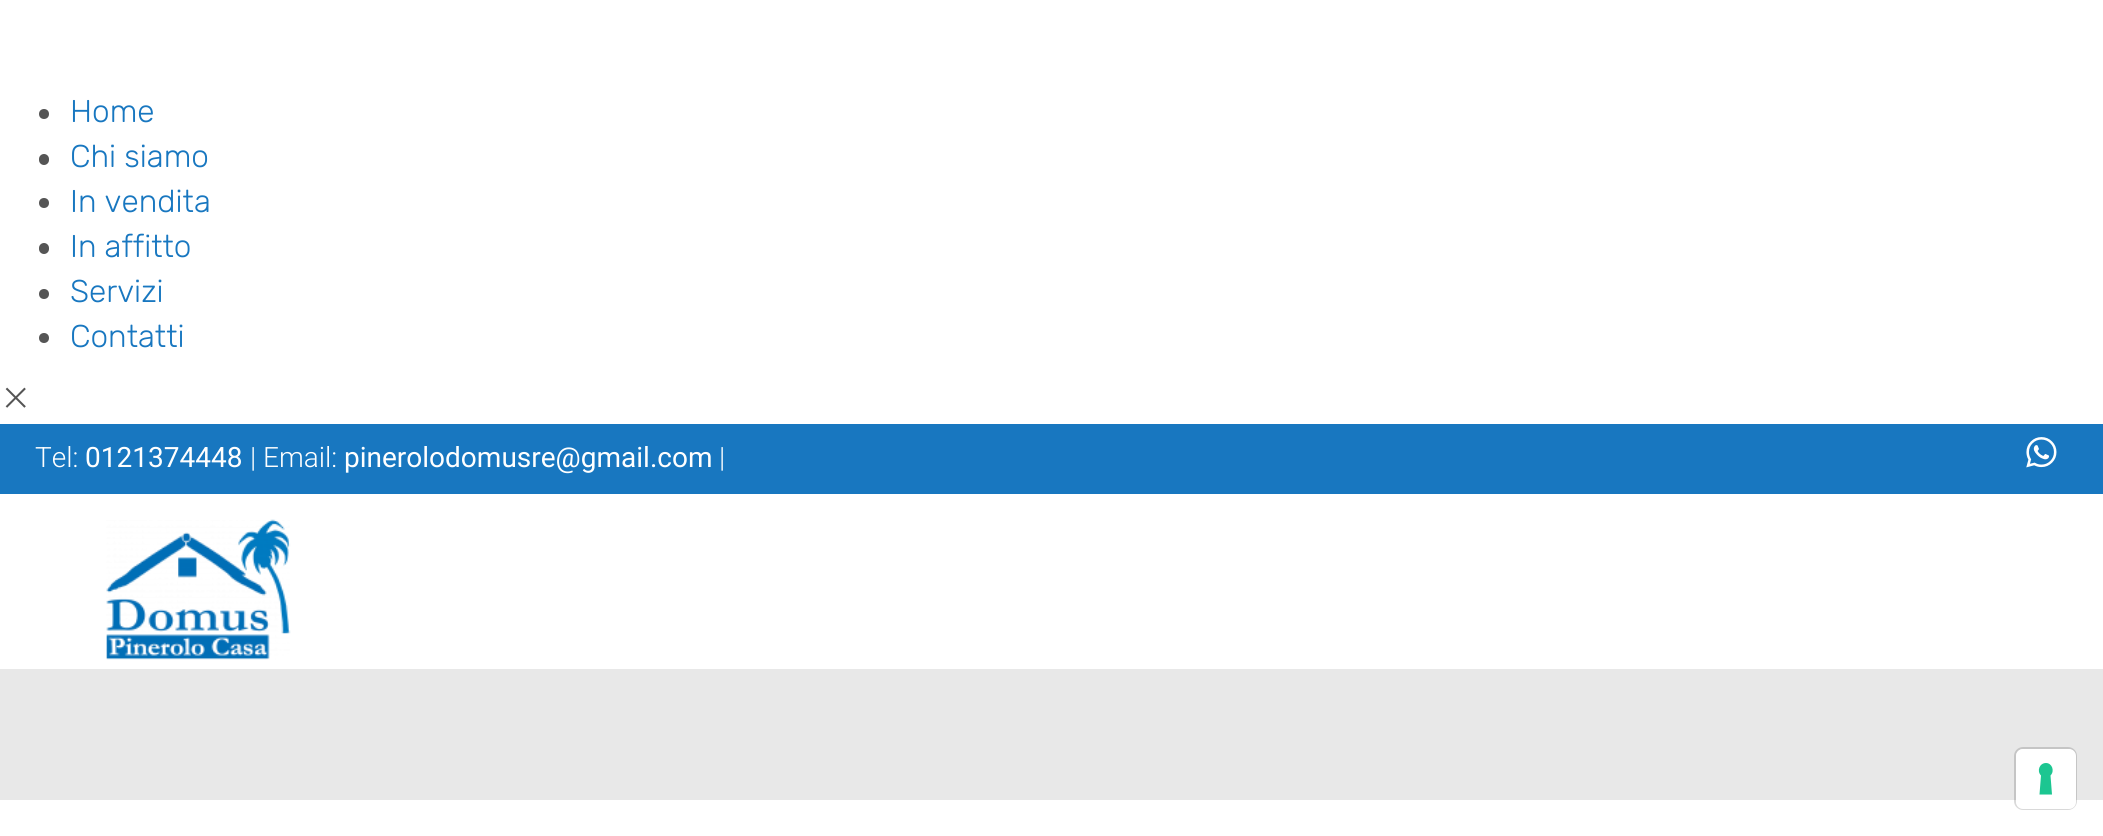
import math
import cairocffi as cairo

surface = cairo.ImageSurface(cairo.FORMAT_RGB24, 2103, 836)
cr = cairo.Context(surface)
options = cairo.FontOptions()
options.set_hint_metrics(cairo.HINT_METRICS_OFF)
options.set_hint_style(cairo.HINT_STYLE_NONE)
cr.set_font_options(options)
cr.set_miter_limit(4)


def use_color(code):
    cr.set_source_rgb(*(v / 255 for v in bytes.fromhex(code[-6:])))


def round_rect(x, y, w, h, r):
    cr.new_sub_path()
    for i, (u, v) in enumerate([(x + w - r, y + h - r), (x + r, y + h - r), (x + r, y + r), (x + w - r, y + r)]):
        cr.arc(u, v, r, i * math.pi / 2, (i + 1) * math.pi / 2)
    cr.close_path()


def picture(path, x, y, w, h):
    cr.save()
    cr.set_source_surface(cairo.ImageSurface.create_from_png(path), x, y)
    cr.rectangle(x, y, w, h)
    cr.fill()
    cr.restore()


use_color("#ffffff")
cr.paint()
use_color("#555555")
cr.arc(44, 114, 5, 0, 2 * math.pi)
cr.fill()
cr.select_font_face("Rubik Light")
cr.set_font_size(31.5)
use_color("#1877c0")
cr.move_to(70, 122)
cr.show_text("Home")
use_color("#555555")
round_rect(39, 154, 10, 11, 5)
cr.fill()
use_color("#1877c0")
cr.move_to(70, 167)
cr.show_text("Chi siamo")
use_color("#555555")
cr.new_path()
cr.arc(44, 203, 5, 0, 2 * math.pi)
cr.fill()
use_color("#1877c0")
cr.move_to(70, 212)
cr.show_text("In vendita")
use_color("#555555")
round_rect(39, 243, 10, 11, 5)
cr.fill()
use_color("#1877c0")
cr.move_to(70, 257)
cr.show_text("In affitto")
use_color("#555555")
cr.new_path()
cr.arc(44, 294, 5, 0, 2 * math.pi)
cr.fill()
use_color("#1877c0")
cr.move_to(70, 302)
cr.show_text("Servizi")
use_color("#555555")
cr.new_path()
cr.arc(44, 338, 5, 0, 2 * math.pi)
cr.fill()
use_color("#1877c0")
cr.move_to(70, 347)
cr.show_text("Contatti")
picture("img1.png", 5, 387, 21, 21)
cr.rectangle(0, 424, 2103, 70)
cr.fill()
cr.select_font_face("Roboto Light")
cr.set_font_size(28)
use_color("#ffffff")
cr.move_to(35, 467)
cr.show_text("Tel:")
cr.select_font_face("Roboto")
cr.move_to(85, 467)
cr.show_text("0121374448")
cr.select_font_face("Roboto Light")
cr.move_to(250, 467)
cr.show_text("| Email:")
cr.select_font_face("Roboto")
cr.move_to(344, 467)
cr.show_text("pinerolodomusre@gmail.com")
cr.select_font_face("Roboto Light")
cr.move_to(719, 467)
cr.show_text("|")
picture("img2.png", 2026, 437, 31, 31)
picture("img3.png", 106, 519, 185, 141)
use_color("#e8e8e8")
cr.rectangle(0, 669, 2103, 131)
cr.fill()
round_rect(2015, 748, 61, 61, 8)
cr.set_source_rgba(0, 0, 0, 0.15)
cr.stroke()
use_color("#ffffff")
round_rect(2016, 749, 60, 60, 7)
cr.fill()
use_color("#1cc691")
cr.set_fill_rule(cairo.FILL_RULE_EVEN_ODD)
cr.new_path()
cr.move_to(2046, 763)
cr.curve_to(2052, 763, 2055, 771, 2050.5, 775.5)
cr.line_to(2052, 794.5)
cr.line_to(2039.5, 794.5)
cr.line_to(2041, 775.5)
cr.curve_to(2036.5, 771, 2039.5, 763, 2046, 763)
cr.close_path()
cr.fill()
surface.write_to_png("result.png")
